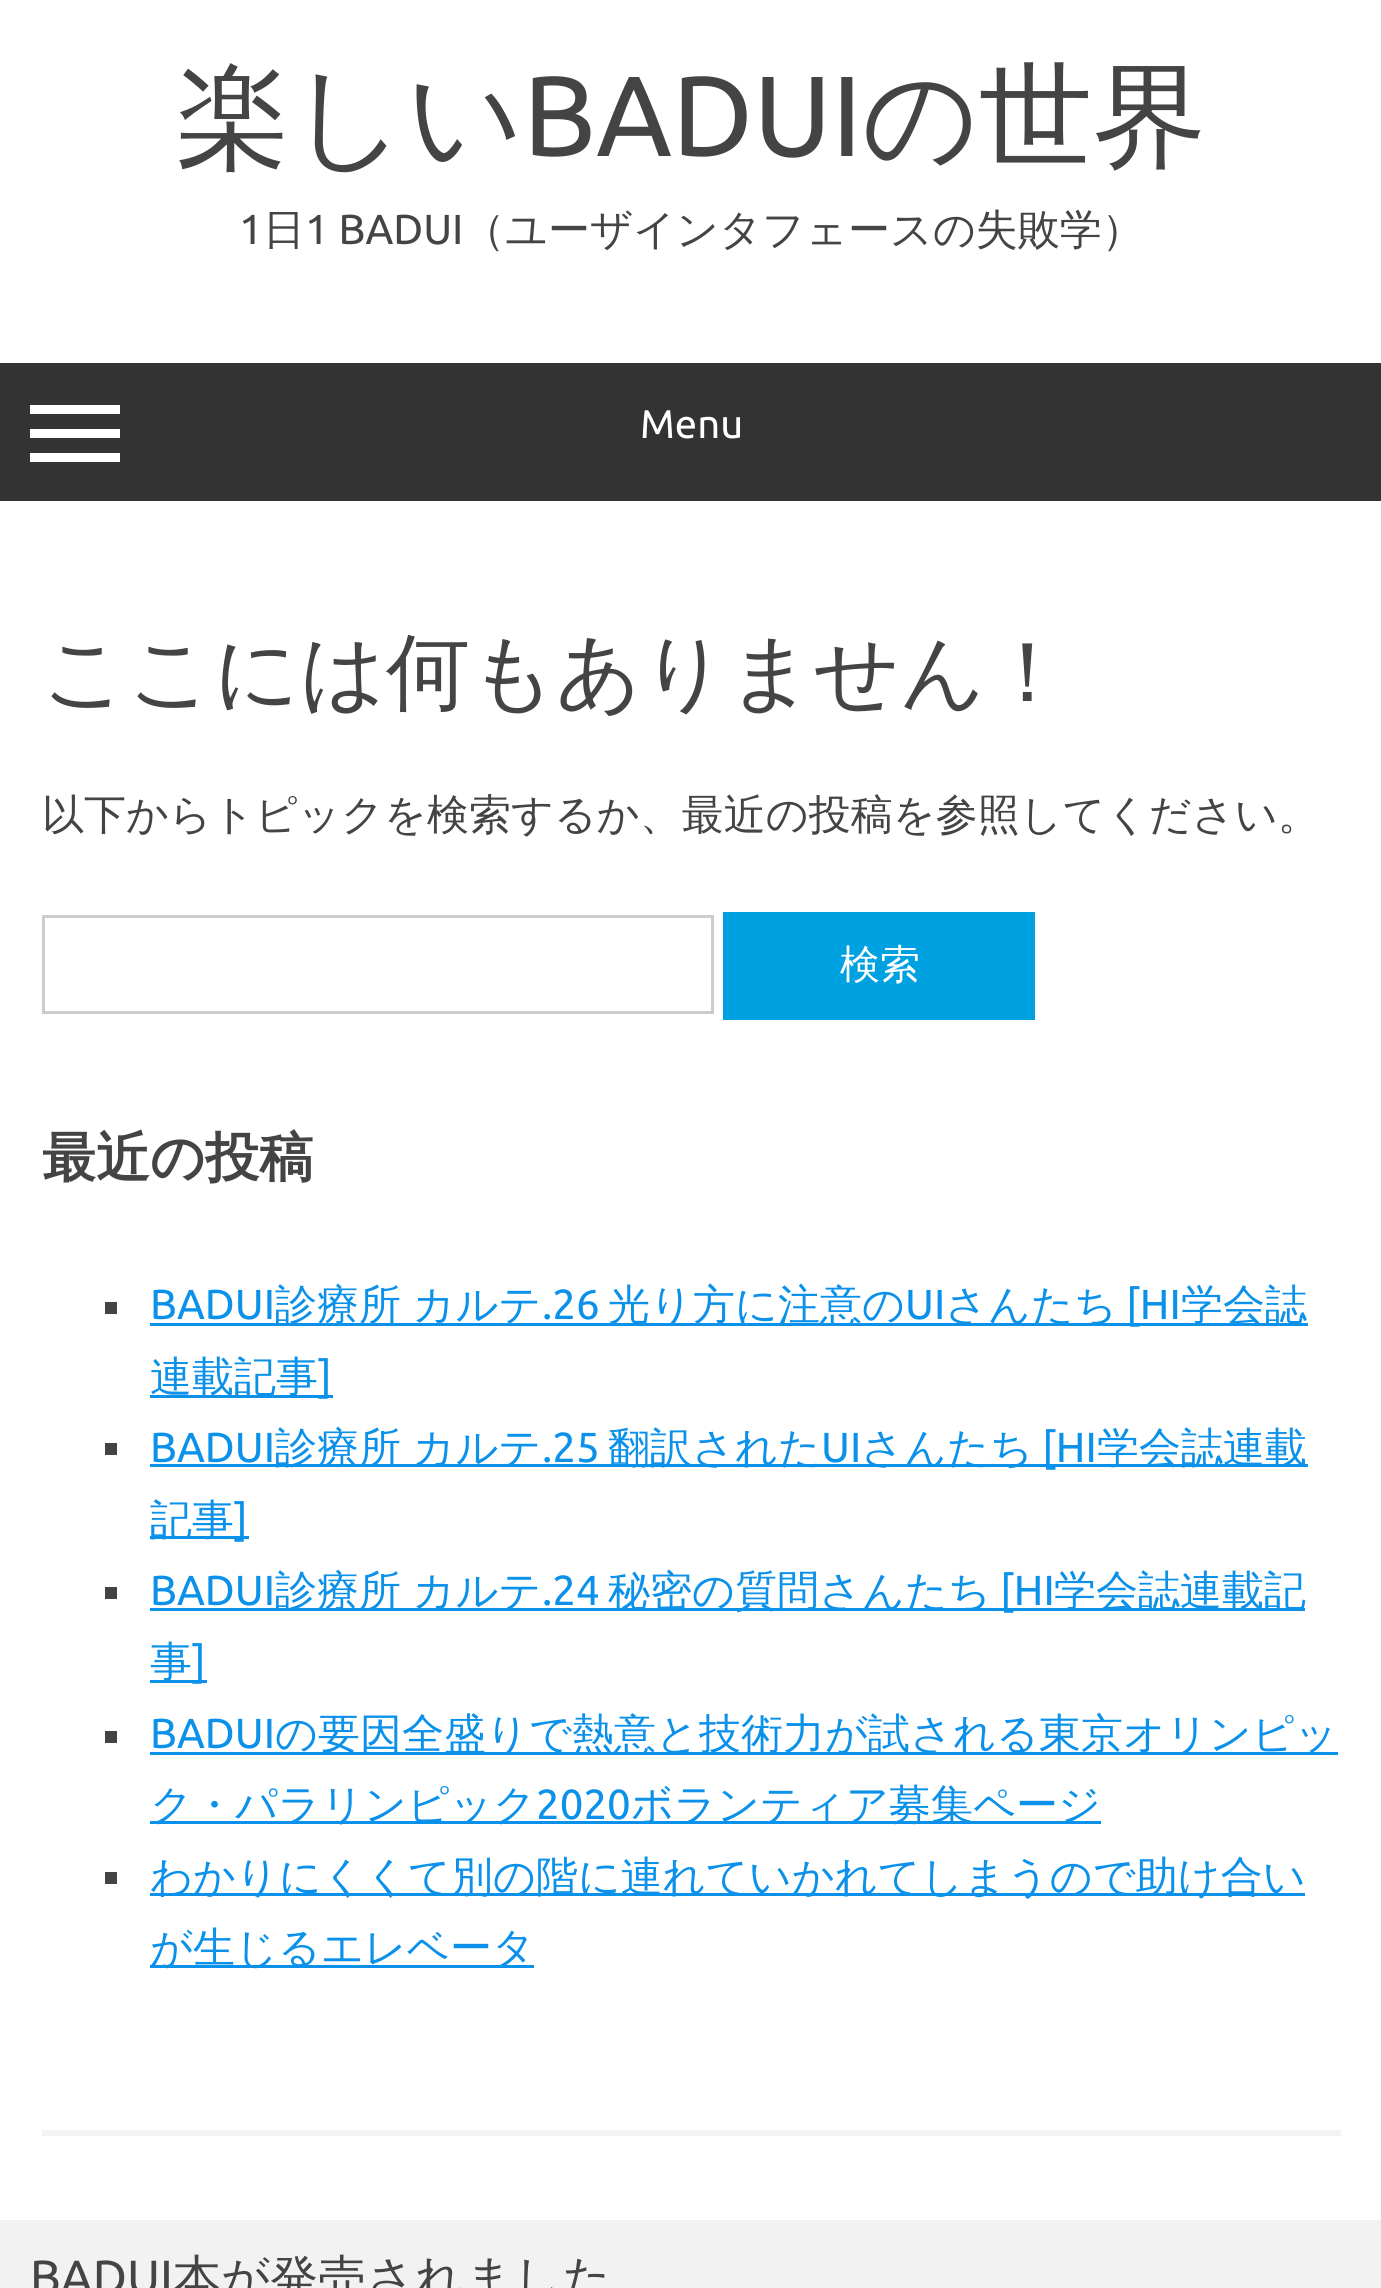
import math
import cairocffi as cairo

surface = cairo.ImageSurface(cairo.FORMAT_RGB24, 1381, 2288)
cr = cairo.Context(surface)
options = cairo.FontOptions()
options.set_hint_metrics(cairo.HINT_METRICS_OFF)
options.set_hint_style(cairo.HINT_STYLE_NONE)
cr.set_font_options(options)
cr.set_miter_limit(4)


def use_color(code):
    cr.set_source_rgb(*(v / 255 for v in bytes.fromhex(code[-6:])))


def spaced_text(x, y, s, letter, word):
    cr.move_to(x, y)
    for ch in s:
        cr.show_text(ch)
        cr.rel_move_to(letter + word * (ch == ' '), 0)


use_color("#ffffff")
cr.paint()
cr.select_font_face("WenQuanYi Zen Hei Medium")
cr.set_font_size(114)
use_color("#444444")
cr.move_to(176, 156)
cr.show_text("楽しい")
cr.select_font_face("Ubuntu")
cr.move_to(523, 156)
cr.show_text("BADUI")
cr.select_font_face("WenQuanYi Zen Hei Medium")
cr.move_to(862, 156)
cr.show_text("の世界")
cr.select_font_face("Ubuntu")
cr.set_font_size(42)
cr.move_to(239, 244)
cr.show_text("1")
cr.select_font_face("WenQuanYi Zen Hei Medium")
cr.move_to(263, 244)
cr.show_text("日")
cr.select_font_face("Ubuntu")
cr.move_to(305, 244)
cr.show_text("1 BADUI")
cr.select_font_face("WenQuanYi Zen Hei Medium")
cr.move_to(463, 244)
cr.show_text("（ユーザインタフェースの失敗学）")
use_color("#333333")
cr.rectangle(0, 363, 1381, 138)
cr.fill()
use_color("#ffffff")
cr.rectangle(30, 405, 90, 9)
cr.fill()
cr.rectangle(30, 429, 90, 9)
cr.fill()
cr.rectangle(30, 453, 90, 9)
cr.fill()
cr.select_font_face("Ubuntu")
cr.set_font_size(40)
cr.move_to(640, 438)
cr.show_text("Menu")
use_color("#f3f3f3")
cr.rectangle(42, 2130, 1299, 6)
cr.fill()
cr.select_font_face("WenQuanYi Zen Hei Medium")
cr.set_font_size(84)
use_color("#444444")
cr.move_to(42, 701)
cr.show_text("ここには何もありません！")
cr.set_font_size(42)
cr.move_to(42, 829)
cr.show_text("以下からトピックを検索するか、最近の投稿を参照してください。")
cr.rectangle(43.5, 916.5, 669, 96)
use_color("#cccccc")
cr.set_line_width(3)
cr.stroke()
use_color("#00a1e0")
cr.rectangle(723, 912, 312, 108)
cr.fill()
cr.set_font_size(40)
use_color("#ffffff")
cr.move_to(840, 978)
cr.show_text("検索")
cr.select_font_face("WenQuanYi Zen Hei", cairo.FONT_SLANT_NORMAL, cairo.FONT_WEIGHT_BOLD)
cr.set_font_size(54)
use_color("#444444")
cr.move_to(42, 1176)
cr.show_text("最近の投稿")
cr.rectangle(105, 1302, 12, 12)
cr.fill()
cr.select_font_face("Ubuntu")
cr.set_font_size(42)
use_color("#0b91ea")
cr.move_to(150, 1319)
cr.show_text("BADUI")
cr.rectangle(150, 1323, 1158, 3)
cr.fill()
cr.select_font_face("WenQuanYi Zen Hei Medium")
spaced_text(275, 1319, "診療所 カルテ", 0, -1)
cr.select_font_face("Ubuntu")
cr.move_to(542, 1319)
cr.show_text(".26")
cr.select_font_face("WenQuanYi Zen Hei Medium")
cr.move_to(608, 1319)
cr.show_text("光り方に注意の")
cr.select_font_face("Ubuntu")
cr.move_to(905, 1319)
cr.show_text("UI")
cr.select_font_face("WenQuanYi Zen Hei Medium")
cr.move_to(945, 1319)
cr.show_text("さんたち")
cr.select_font_face("Ubuntu")
cr.move_to(1126, 1319)
cr.show_text("[HI")
cr.select_font_face("WenQuanYi Zen Hei Medium")
cr.move_to(1181, 1319)
cr.show_text("学会誌")
cr.rectangle(150, 1395, 183, 3)
cr.fill()
cr.move_to(150, 1391)
cr.show_text("連載記事")
cr.select_font_face("Ubuntu")
cr.move_to(318, 1391)
cr.show_text("]")
use_color("#444444")
cr.rectangle(105, 1443, 12, 12)
cr.fill()
use_color("#0b91ea")
cr.move_to(150, 1462)
cr.show_text("BADUI")
cr.rectangle(150, 1464, 1158, 3)
cr.fill()
cr.select_font_face("WenQuanYi Zen Hei Medium")
spaced_text(275, 1462, "診療所 カルテ", 0, -1)
cr.select_font_face("Ubuntu")
cr.move_to(542, 1462)
cr.show_text(".25")
cr.select_font_face("WenQuanYi Zen Hei Medium")
cr.move_to(608, 1462)
cr.show_text("翻訳された")
cr.select_font_face("Ubuntu")
cr.move_to(821, 1462)
cr.show_text("UI")
cr.select_font_face("WenQuanYi Zen Hei Medium")
cr.move_to(861, 1462)
cr.show_text("さんたち")
cr.select_font_face("Ubuntu")
cr.move_to(1042, 1462)
cr.show_text("[HI")
cr.select_font_face("WenQuanYi Zen Hei Medium")
cr.move_to(1097, 1462)
cr.show_text("学会誌連載")
cr.rectangle(150, 1536, 99, 3)
cr.fill()
cr.move_to(150, 1534)
cr.show_text("記事")
cr.select_font_face("Ubuntu")
cr.move_to(234, 1534)
cr.show_text("]")
use_color("#444444")
cr.rectangle(105, 1587, 12, 12)
cr.fill()
use_color("#0b91ea")
cr.move_to(150, 1605)
cr.show_text("BADUI")
cr.rectangle(150, 1608, 1155, 3)
cr.fill()
cr.select_font_face("WenQuanYi Zen Hei Medium")
spaced_text(275, 1605, "診療所 カルテ", 0, -1)
cr.select_font_face("Ubuntu")
cr.move_to(542, 1605)
cr.show_text(".24")
cr.select_font_face("WenQuanYi Zen Hei Medium")
cr.move_to(608, 1605)
cr.show_text("秘密の質問さんたち")
cr.select_font_face("Ubuntu")
cr.move_to(1000, 1605)
cr.show_text("[HI")
cr.select_font_face("WenQuanYi Zen Hei Medium")
cr.move_to(1054, 1605)
cr.show_text("学会誌連載記")
cr.rectangle(150, 1680, 57, 3)
cr.fill()
cr.move_to(150, 1676)
cr.show_text("事")
cr.select_font_face("Ubuntu")
cr.move_to(192, 1676)
cr.show_text("]")
use_color("#444444")
cr.rectangle(105, 1731, 12, 12)
cr.fill()
use_color("#0b91ea")
cr.move_to(150, 1748)
cr.show_text("BADUI")
cr.rectangle(150, 1752, 1188, 3)
cr.fill()
cr.select_font_face("WenQuanYi Zen Hei Medium")
cr.move_to(275, 1748)
cr.show_text("の要因全盛りで熱意と技術力が試される東京オリンピッ")
cr.rectangle(150, 1821, 951, 3)
cr.fill()
cr.move_to(150, 1819)
cr.show_text("ク・パラリンピック")
cr.select_font_face("Ubuntu")
cr.move_to(536, 1819)
cr.show_text("2020")
cr.select_font_face("WenQuanYi Zen Hei Medium")
cr.move_to(631, 1819)
cr.show_text("ボランティア募集ページ")
use_color("#444444")
cr.rectangle(105, 1872, 12, 12)
cr.fill()
use_color("#0b91ea")
cr.rectangle(150, 1893, 1155, 3)
cr.fill()
cr.move_to(150, 1891)
cr.show_text("わかりにくくて別の階に連れていかれてしまうので助け合い")
cr.rectangle(150, 1965, 384, 3)
cr.fill()
cr.move_to(150, 1962)
cr.show_text("が生じるエレベータ")
use_color("#f2f2f2")
cr.rectangle(0, 2220, 1381, 68)
cr.fill()
cr.select_font_face("Ubuntu")
cr.set_font_size(48)
use_color("#444444")
cr.move_to(30, 2294)
cr.show_text("BADUI")
cr.select_font_face("WenQuanYi Zen Hei Medium")
cr.move_to(173, 2294)
cr.show_text("本が発売されました")
surface.write_to_png("result.png")
